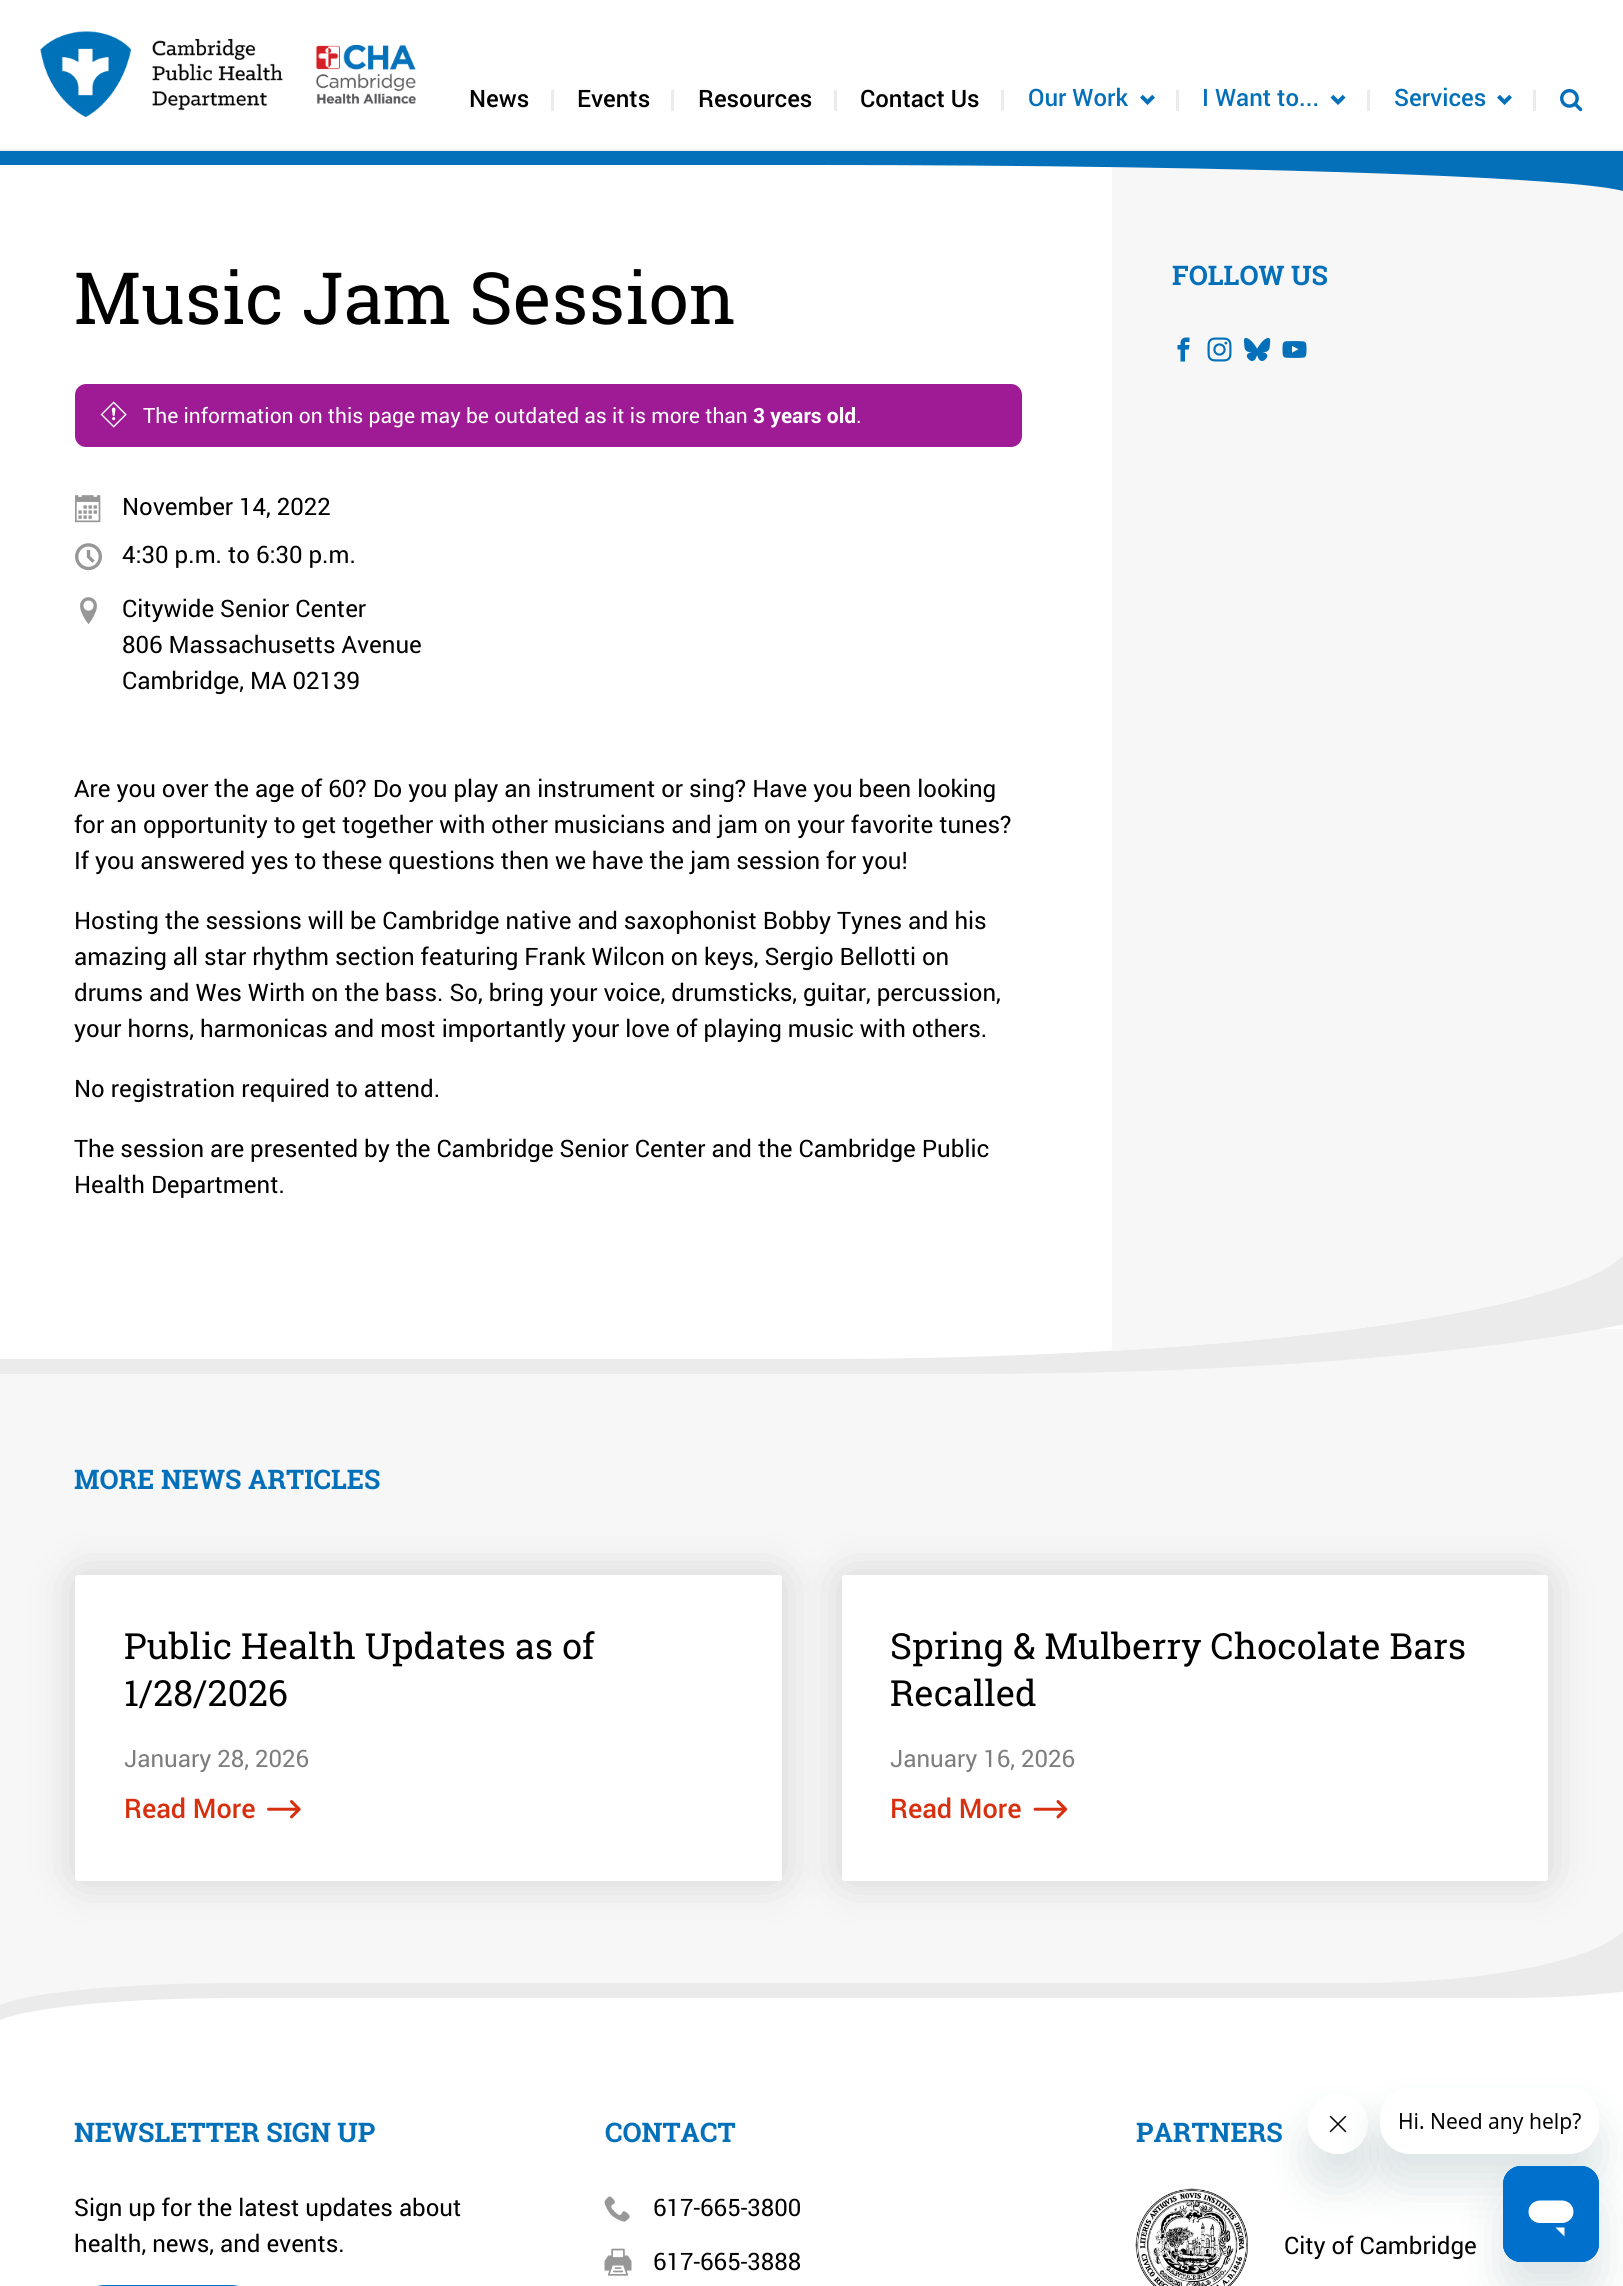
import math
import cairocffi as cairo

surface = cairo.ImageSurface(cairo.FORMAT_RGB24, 1623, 2286)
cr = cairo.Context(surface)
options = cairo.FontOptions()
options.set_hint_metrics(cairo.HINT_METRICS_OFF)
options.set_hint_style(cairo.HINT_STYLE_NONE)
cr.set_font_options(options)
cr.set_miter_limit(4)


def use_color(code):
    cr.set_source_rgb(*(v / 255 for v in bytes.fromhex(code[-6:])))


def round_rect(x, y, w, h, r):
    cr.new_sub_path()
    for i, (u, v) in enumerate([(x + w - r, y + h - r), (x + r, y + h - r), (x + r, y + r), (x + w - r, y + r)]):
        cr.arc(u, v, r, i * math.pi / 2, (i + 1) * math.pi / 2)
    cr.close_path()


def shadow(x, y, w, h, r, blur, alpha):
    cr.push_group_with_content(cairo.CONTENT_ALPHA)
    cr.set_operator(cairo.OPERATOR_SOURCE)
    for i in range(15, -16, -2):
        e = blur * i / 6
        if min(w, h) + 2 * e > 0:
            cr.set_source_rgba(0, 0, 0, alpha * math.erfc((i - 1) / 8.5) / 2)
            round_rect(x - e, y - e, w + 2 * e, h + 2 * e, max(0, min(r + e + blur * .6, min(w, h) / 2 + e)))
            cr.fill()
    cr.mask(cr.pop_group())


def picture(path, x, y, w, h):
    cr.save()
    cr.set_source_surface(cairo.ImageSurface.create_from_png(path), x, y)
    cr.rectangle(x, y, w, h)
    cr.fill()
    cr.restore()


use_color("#ffffff")
cr.paint()
use_color("#f7f7f7")
cr.rectangle(0, 1329, 1623, 677)
cr.fill()
use_color("#ebebeb")
cr.new_path()
cr.move_to(-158, 165)
cr.line_to(-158, 1374)
cr.line_to(662, 1374)
cr.curve_to(865, 1374, 1050, 1363, 1193, 1345)
cr.curve_to(1079, 1354, 949, 1359, 812, 1359)
cr.line_to(-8, 1359)
cr.line_to(-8, 165)
cr.close_path()
cr.fill()
cr.new_path()
cr.move_to(142, 1359)
cr.line_to(142, 1374)
cr.line_to(962, 1374)
cr.curve_to(1414, 1374, 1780, 1320, 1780, 1254)
cr.line_to(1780, 165)
cr.line_to(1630, 165)
cr.line_to(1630, 1239)
cr.curve_to(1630, 1305, 1264, 1359, 812, 1359)
cr.close_path()
cr.fill()
use_color("#ffffff")
cr.new_path()
cr.move_to(-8, 150)
cr.line_to(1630, 150)
cr.line_to(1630, 1239)
cr.curve_to(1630, 1305, 1264, 1359, 812, 1359)
cr.line_to(-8, 1359)
cr.close_path()
cr.fill()
use_color("#f7f7f7")
cr.new_path()
cr.move_to(1112, 150)
cr.line_to(1112, 1351)
cr.curve_to(1416, 1333, 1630, 1290, 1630, 1239)
cr.line_to(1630, 150)
cr.close_path()
cr.fill()
use_color("#0470b9")
cr.new_path()
cr.move_to(-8, 150)
cr.line_to(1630, 150)
cr.line_to(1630, 194)
cr.curve_to(1615, 178, 1254, 165, 812, 165)
cr.line_to(-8, 165)
cr.close_path()
cr.fill()
use_color("#eeeeee")
cr.rectangle(0, 149, 1623, 2)
cr.fill()
picture("img1.png", 40, 31, 376, 86)
cr.select_font_face("Roboto Medium")
cr.set_font_size(24)
use_color("#000000")
cr.move_to(469, 107)
cr.show_text("News")
use_color("#ebebeb")
cr.rectangle(551, 90, 3, 21)
cr.fill()
use_color("#000000")
cr.move_to(577, 107)
cr.show_text("Events")
use_color("#ebebeb")
cr.rectangle(671, 90, 3, 21)
cr.fill()
use_color("#000000")
cr.move_to(698, 107)
cr.show_text("Resources")
use_color("#ebebeb")
cr.rectangle(834, 90, 3, 21)
cr.fill()
use_color("#000000")
cr.move_to(860, 107)
cr.show_text("Contact Us")
use_color("#ebebeb")
cr.rectangle(1001, 90, 3, 21)
cr.fill()
use_color("#0470b9")
cr.move_to(1028, 106)
cr.show_text("Our Work")
picture("img2.png", 1140, 94, 15, 11)
use_color("#ebebeb")
cr.rectangle(1176, 90, 3, 21)
cr.fill()
use_color("#0470b9")
cr.move_to(1202, 106)
cr.show_text("I Want to...")
picture("img3.png", 1330, 94, 16, 11)
use_color("#ebebeb")
cr.rectangle(1367, 90, 3, 21)
cr.fill()
use_color("#0470b9")
cr.move_to(1394, 106)
cr.show_text("Services")
picture("img2.png", 1497, 94, 15, 11)
use_color("#ebebeb")
cr.rectangle(1533, 90, 3, 21)
cr.fill()
picture("img4.png", 1560, 88, 23, 24)
cr.select_font_face("Roboto Slab")
cr.set_font_size(72)
use_color("#000000")
cr.move_to(74, 324)
cr.show_text("Music Jam Session")
use_color("#9f1b96")
round_rect(75, 384, 947, 63, 11)
cr.fill()
picture("img5.png", 100, 401, 27, 27)
cr.select_font_face("Roboto")
cr.set_font_size(21)
use_color("#ffffff")
cr.move_to(143, 423)
cr.show_text("The information on this page may be outdated as it is more than")
cr.select_font_face("Roboto", cairo.FONT_SLANT_NORMAL, cairo.FONT_WEIGHT_BOLD)
cr.move_to(753, 423)
cr.show_text("3 years old")
cr.select_font_face("Roboto")
cr.move_to(856, 423)
cr.show_text(".")
picture("img6.png", 75, 495, 26, 28)
cr.set_font_size(24)
use_color("#000000")
cr.move_to(122, 515)
cr.show_text("November 14, 2022")
picture("img7.png", 75, 543, 27, 28)
cr.move_to(122, 563)
cr.show_text("4:30 p.m. to 6:30 p.m.")
picture("img8.png", 80, 597, 17, 27)
cr.move_to(122, 617)
cr.show_text("Citywide Senior Center")
cr.move_to(122, 653)
cr.show_text("806 Massachusetts Avenue")
cr.move_to(122, 689)
cr.show_text("Cambridge, MA 02139")
cr.move_to(74, 797)
cr.show_text("Are you over the age of 60? Do you play an instrument or sing? Have you been looking")
cr.move_to(74, 833)
cr.show_text("for an opportunity to get together with other musicians and jam on your favorite tunes?")
cr.move_to(74, 869)
cr.show_text("If you answered yes to these questions then we have the jam session for you!")
cr.move_to(74, 929)
cr.show_text("Hosting the sessions will be Cambridge native and saxophonist Bobby Tynes and his")
cr.move_to(74, 965)
cr.show_text("amazing all star rhythm section featuring Frank Wilcon on keys, Sergio Bellotti on")
cr.move_to(74, 1001)
cr.show_text("drums and Wes Wirth on the bass. So, bring your voice, drumsticks, guitar, percussion,")
cr.move_to(74, 1037)
cr.show_text("your horns, harmonicas and most importantly your love of playing music with others.")
cr.move_to(74, 1097)
cr.show_text("No registration required to attend.")
cr.move_to(74, 1157)
cr.show_text("The session are presented by the Cambridge Senior Center and the Cambridge Public")
cr.move_to(74, 1193)
cr.show_text("Health Department.")
cr.select_font_face("Roboto Slab", cairo.FONT_SLANT_NORMAL, cairo.FONT_WEIGHT_BOLD)
cr.set_font_size(27)
use_color("#0470b9")
cr.move_to(1172, 285)
cr.show_text("FOLLOW US")
picture("img9.png", 1177, 337, 13, 25)
picture("img10.png", 1207, 337, 25, 25)
picture("img11.png", 1243, 337, 28, 24)
picture("img12.png", 1282, 341, 25, 17)
cr.move_to(74, 1489)
cr.show_text("MORE NEWS ARTICLES")
use_color("#000000")
shadow(81, 1581, 695, 294, 0, 24, 0.2)
use_color("#ffffff")
round_rect(75, 1575, 707, 306, 3)
cr.fill()
cr.select_font_face("Roboto Slab")
cr.set_font_size(36)
use_color("#000000")
cr.move_to(124, 1659)
cr.show_text("Public Health Updates as of")
cr.move_to(124, 1706)
cr.show_text("1/28/2026")
cr.select_font_face("Roboto")
cr.set_font_size(24)
use_color("#7d7d7d")
cr.move_to(124, 1767)
cr.show_text("January 28, 2026")
cr.select_font_face("Roboto Medium")
cr.set_font_size(27)
use_color("#d7300f")
cr.move_to(124, 1818)
cr.show_text("Read More")
picture("img13.png", 267, 1800, 34, 19)
use_color("#000000")
shadow(848, 1581, 694, 294, 0, 24, 0.2)
use_color("#ffffff")
round_rect(842, 1575, 706, 306, 3)
cr.fill()
cr.select_font_face("Roboto Slab")
cr.set_font_size(36)
use_color("#000000")
cr.move_to(890, 1659)
cr.show_text("Spring & Mulberry Chocolate Bars")
cr.move_to(890, 1706)
cr.show_text("Recalled")
cr.select_font_face("Roboto")
cr.set_font_size(24)
use_color("#7d7d7d")
cr.move_to(890, 1767)
cr.show_text("January 16, 2026")
cr.select_font_face("Roboto Medium")
cr.set_font_size(27)
use_color("#d7300f")
cr.move_to(890, 1818)
cr.show_text("Read More")
picture("img14.png", 1033, 1800, 35, 19)
use_color("#ffffff")
cr.new_path()
cr.move_to(484, 1983)
cr.line_to(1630, 1983)
cr.line_to(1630, 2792)
cr.line_to(-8, 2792)
cr.line_to(-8, 2013)
cr.curve_to(-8, 1996, 213, 1983, 484, 1983)
cr.close_path()
cr.fill()
use_color("#ebebeb")
cr.new_path()
cr.move_to(812, 1983)
cr.line_to(812, 1998)
cr.line_to(1508, 1998)
cr.curve_to(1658, 1998, 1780, 1968, 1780, 1930)
cr.line_to(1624, 1930)
cr.curve_to(1597, 1960, 1488, 1983, 1358, 1983)
cr.close_path()
cr.fill()
cr.new_path()
cr.move_to(238, 1983)
cr.curve_to(103, 1983, -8, 1996, -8, 2013)
cr.line_to(-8, 2028)
cr.curve_to(-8, 2011, 103, 1998, 238, 1998)
cr.line_to(812, 1998)
cr.line_to(812, 2028)
cr.line_to(812, 1983)
cr.close_path()
cr.fill()
cr.select_font_face("Roboto Slab", cairo.FONT_SLANT_NORMAL, cairo.FONT_WEIGHT_BOLD)
use_color("#0470b9")
cr.move_to(74, 2142)
cr.show_text("NEWSLETTER SIGN UP")
cr.select_font_face("Roboto")
cr.set_font_size(24)
use_color("#000000")
cr.move_to(74, 2216)
cr.show_text("Sign up for the latest updates about")
cr.move_to(74, 2252)
cr.show_text("health, news, and events.")
round_rect(76.5, 2286.5, 183, 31, 28.5)
use_color("#0470b9")
cr.set_line_width(3)
cr.stroke()
cr.select_font_face("Roboto Slab", cairo.FONT_SLANT_NORMAL, cairo.FONT_WEIGHT_BOLD)
cr.set_font_size(27)
cr.move_to(605, 2142)
cr.show_text("CONTACT")
picture("img15.png", 604, 2196, 26, 26)
cr.select_font_face("Roboto")
cr.set_font_size(24)
use_color("#000000")
cr.move_to(653, 2216)
cr.show_text("617-665-3800")
picture("img16.png", 604, 2248, 28, 28)
cr.move_to(653, 2270)
cr.show_text("617-665-3888")
cr.select_font_face("Roboto Slab", cairo.FONT_SLANT_NORMAL, cairo.FONT_WEIGHT_BOLD)
cr.set_font_size(27)
use_color("#0470b9")
cr.move_to(1136, 2142)
cr.show_text("PARTNERS")
picture("img17.png", 1135, 2188, 113, 98)
cr.select_font_face("Roboto")
cr.set_font_size(24)
use_color("#000000")
cr.move_to(1284, 2254)
cr.show_text("City of Cambridge")
cr.save()
cr.set_fill_rule(cairo.FILL_RULE_EVEN_ODD)
cr.new_path()
cr.move_to(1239, 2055)
cr.line_to(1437, 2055)
cr.line_to(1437, 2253)
cr.line_to(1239, 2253)
cr.close_path()
cr.move_to(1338, 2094)
cr.curve_to(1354.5, 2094, 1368, 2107.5, 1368, 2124)
cr.curve_to(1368, 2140.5, 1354.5, 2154, 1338, 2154)
cr.curve_to(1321.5, 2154, 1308, 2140.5, 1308, 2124)
cr.curve_to(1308, 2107.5, 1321.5, 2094, 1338, 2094)
cr.close_path()
cr.clip()
use_color("#17494d")
shadow(1308, 2124, 60, 60, 30, 22.5, 0.15)
cr.restore()
picture("img19.png", 1329, 2115, 18, 18)
cr.save()
cr.set_fill_rule(cairo.FILL_RULE_EVEN_ODD)
cr.new_path()
cr.move_to(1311, 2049)
cr.line_to(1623, 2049)
cr.line_to(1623, 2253)
cr.line_to(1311, 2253)
cr.close_path()
cr.move_to(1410, 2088)
cr.line_to(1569, 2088)
cr.curve_to(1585.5, 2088, 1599, 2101.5, 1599, 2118)
cr.line_to(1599, 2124)
cr.curve_to(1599, 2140.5, 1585.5, 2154, 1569, 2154)
cr.line_to(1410, 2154)
cr.curve_to(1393.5, 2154, 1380, 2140.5, 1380, 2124)
cr.line_to(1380, 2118)
cr.curve_to(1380, 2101.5, 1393.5, 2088, 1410, 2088)
cr.close_path()
cr.clip()
use_color("#17494d")
shadow(1380, 2118, 219, 66, 30, 22.5, 0.15)
cr.restore()
picture("img18.png", 1381, 2113, 200, 39)
use_color("#17494d")
shadow(1503, 2196, 96, 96, 18, 22.5, 0.15)
picture("img20.png", 1503, 2166, 96, 96)
surface.write_to_png("result.png")
